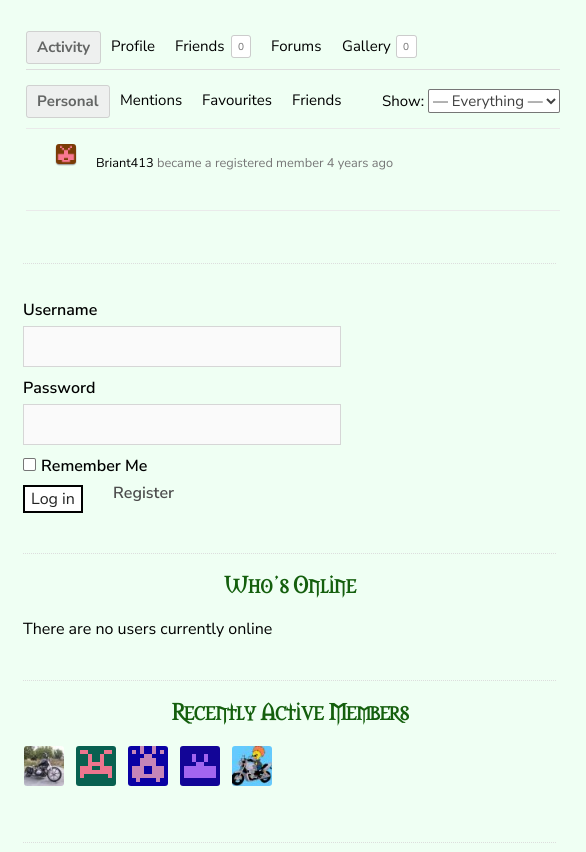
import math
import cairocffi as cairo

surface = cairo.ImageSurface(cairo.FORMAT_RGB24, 586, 852)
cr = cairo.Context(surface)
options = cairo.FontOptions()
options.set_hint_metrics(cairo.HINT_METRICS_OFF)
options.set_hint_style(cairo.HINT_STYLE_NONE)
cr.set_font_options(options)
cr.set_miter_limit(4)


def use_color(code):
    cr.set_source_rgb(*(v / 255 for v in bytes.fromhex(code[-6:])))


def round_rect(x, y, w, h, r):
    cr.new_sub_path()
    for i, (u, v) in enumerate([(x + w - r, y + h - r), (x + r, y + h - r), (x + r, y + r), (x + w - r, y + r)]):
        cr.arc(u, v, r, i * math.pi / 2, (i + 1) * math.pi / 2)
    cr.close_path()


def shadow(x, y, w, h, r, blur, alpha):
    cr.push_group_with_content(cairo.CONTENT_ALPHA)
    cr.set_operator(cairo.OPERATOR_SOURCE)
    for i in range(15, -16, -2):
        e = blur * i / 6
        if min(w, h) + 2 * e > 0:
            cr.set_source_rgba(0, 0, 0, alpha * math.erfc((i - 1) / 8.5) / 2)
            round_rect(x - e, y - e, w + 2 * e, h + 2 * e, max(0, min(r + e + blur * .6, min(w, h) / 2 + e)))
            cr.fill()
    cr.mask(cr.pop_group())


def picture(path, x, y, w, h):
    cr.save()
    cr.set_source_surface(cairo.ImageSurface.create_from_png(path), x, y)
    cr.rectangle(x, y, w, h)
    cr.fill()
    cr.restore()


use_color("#effff3")
cr.paint()
use_color("#dddddd")
cr.rectangle(26, 69, 534, 1)
cr.fill()
use_color("#eef0ef")
round_rect(26.5, 31.5, 74, 32, 2.5)
cr.fill_preserve()
use_color("#d0d1d0")
cr.set_line_width(1)
cr.stroke()
cr.select_font_face("Nunito Sans", cairo.FONT_SLANT_NORMAL, cairo.FONT_WEIGHT_BOLD)
cr.set_font_size(15)
use_color("#646665")
cr.move_to(37, 52)
cr.show_text("Activity")
cr.select_font_face("Nunito Sans")
use_color("#000000")
cr.move_to(111, 51)
cr.show_text("Profile")
cr.move_to(175, 51)
cr.show_text("Friends")
use_color("#ffffff")
round_rect(231.5, 35.5, 19, 22, 2.5)
cr.fill_preserve()
use_color("#cccccc")
cr.stroke()
cr.set_font_size(10)
use_color("#6c6c6c")
cr.move_to(238, 50)
cr.show_text("0")
cr.set_font_size(15)
use_color("#000000")
cr.move_to(271, 51)
cr.show_text("Forums")
cr.move_to(342, 51)
cr.show_text("Gallery")
use_color("#ffffff")
round_rect(396.5, 35.5, 20, 22, 2.5)
cr.fill_preserve()
use_color("#cccccc")
cr.stroke()
cr.set_font_size(10)
use_color("#6c6c6c")
cr.move_to(403, 50)
cr.show_text("0")
use_color("#eef0ef")
round_rect(26.5, 85.5, 83, 32, 2.5)
cr.fill_preserve()
use_color("#d0d1d0")
cr.stroke()
cr.select_font_face("Nunito Sans", cairo.FONT_SLANT_NORMAL, cairo.FONT_WEIGHT_BOLD)
cr.set_font_size(15)
use_color("#646665")
cr.move_to(37, 106)
cr.show_text("Personal")
cr.select_font_face("Nunito Sans")
use_color("#000000")
cr.move_to(120, 105)
cr.show_text("Mentions")
cr.move_to(202, 105)
cr.show_text("Favourites")
cr.move_to(292, 105)
cr.show_text("Friends")
cr.move_to(382, 106)
cr.show_text("Show:")
use_color("#ffffff")
round_rect(428.5, 89.5, 131, 23, 1.5)
cr.fill_preserve()
use_color("#767676")
cr.stroke()
cr.new_path()
cr.move_to(547, 99)
cr.line_to(551, 103)
cr.line_to(555, 99)
use_color("#404040")
cr.set_line_width(2)
cr.stroke()
cr.move_to(433, 106)
cr.show_text("— Everything —")
use_color("#eaeaea")
cr.rectangle(26, 128, 534, 1)
cr.fill()
cr.rectangle(26, 210, 534, 1)
cr.fill()
use_color("#999999")
shadow(56, 145, 20, 20, 3, 0.5, 1)
picture("img1.png", 56, 144, 20, 20)
cr.set_font_size(12.75)
use_color("#000000")
cr.move_to(96, 167)
cr.show_text("Briant413")
use_color("#767676")
cr.move_to(157, 167)
cr.show_text("became a registered member 4 years ago")
cr.new_path()
cr.move_to(23, 263.5)
cr.line_to(557, 263.5)
use_color("#dddddd")
cr.set_line_width(1)
cr.set_dash([1, 1])
cr.stroke()
cr.select_font_face("Nunito Sans SemiBold")
cr.set_font_size(16)
use_color("#000000")
cr.move_to(23, 315)
cr.show_text("Username")
use_color("#fafafa")
cr.rectangle(23.5, 326.5, 317, 40)
cr.fill_preserve()
use_color("#d6d6d6")
cr.set_dash([])
cr.stroke()
use_color("#000000")
cr.move_to(23, 393)
cr.show_text("Password")
use_color("#fafafa")
cr.rectangle(23.5, 404.5, 317, 40)
cr.fill_preserve()
use_color("#d6d6d6")
cr.stroke()
use_color("#ffffff")
round_rect(23.5, 458.5, 12, 12, 1.5)
cr.fill_preserve()
use_color("#767676")
cr.stroke()
use_color("#000000")
cr.move_to(41, 471)
cr.show_text("Remember Me")
use_color("#ffffff")
cr.rectangle(24, 486, 58, 26)
cr.fill_preserve()
use_color("#000000")
cr.set_line_width(2)
cr.stroke()
cr.select_font_face("Nunito Sans")
use_color("#222222")
cr.move_to(31, 504)
cr.show_text("Log in")
cr.select_font_face("Nunito Sans SemiBold")
use_color("#4c4c4c")
cr.move_to(113, 498)
cr.show_text("Register")
cr.new_path()
cr.move_to(23, 553.5)
cr.line_to(557, 553.5)
use_color("#dddddd")
cr.set_line_width(1)
cr.set_dash([1, 1])
cr.stroke()
cr.select_font_face("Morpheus", cairo.FONT_SLANT_NORMAL, cairo.FONT_WEIGHT_BOLD)
cr.set_font_size(22)
use_color("#145f0d")
cr.move_to(224, 593)
cr.show_text("Who’s Online")
cr.select_font_face("Nunito Sans")
cr.set_font_size(16)
use_color("#000000")
cr.move_to(23, 634)
cr.show_text("There are no users currently online")
cr.new_path()
cr.move_to(23, 680.5)
cr.line_to(557, 680.5)
use_color("#dddddd")
cr.stroke()
cr.select_font_face("Morpheus", cairo.FONT_SLANT_NORMAL, cairo.FONT_WEIGHT_BOLD)
cr.set_font_size(22)
use_color("#145f0d")
cr.move_to(172, 720)
cr.show_text("Recently Active Members")
picture("img2.png", 24, 746, 40, 40)
picture("img3.png", 76, 746, 40, 40)
picture("img4.png", 128, 746, 40, 40)
picture("img5.png", 180, 746, 40, 40)
picture("img6.png", 232, 746, 40, 40)
cr.new_path()
cr.move_to(23, 842.5)
cr.line_to(557, 842.5)
use_color("#dddddd")
cr.stroke()
surface.write_to_png("result.png")
